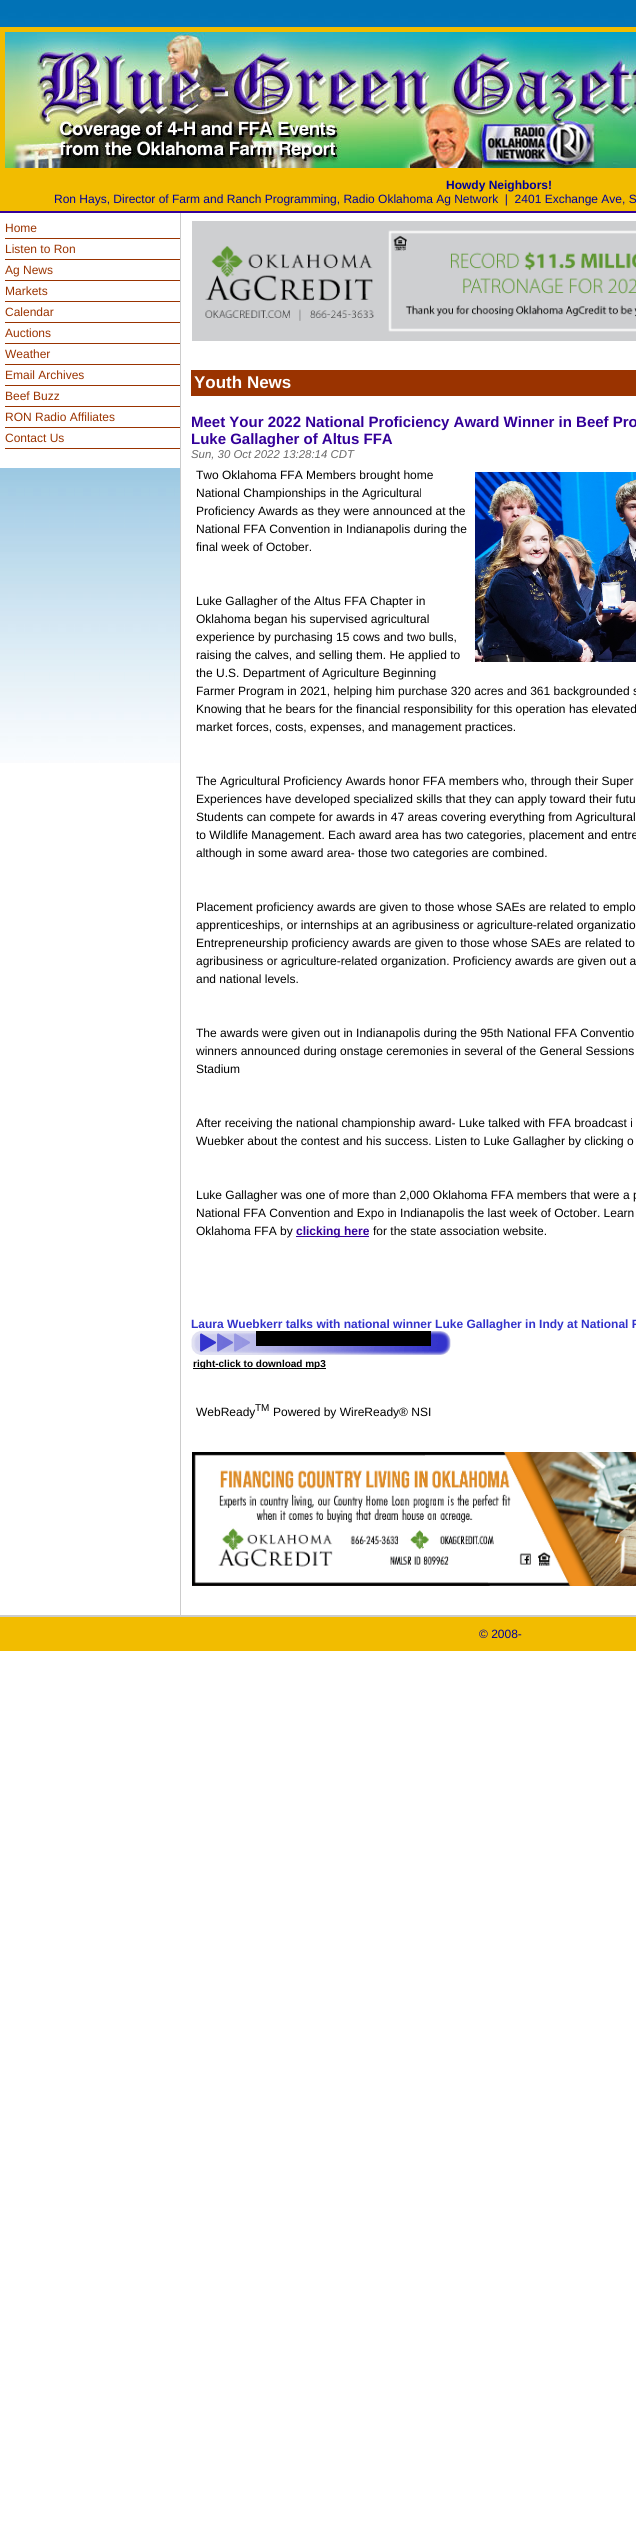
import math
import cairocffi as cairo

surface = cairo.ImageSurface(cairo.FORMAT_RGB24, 636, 2535)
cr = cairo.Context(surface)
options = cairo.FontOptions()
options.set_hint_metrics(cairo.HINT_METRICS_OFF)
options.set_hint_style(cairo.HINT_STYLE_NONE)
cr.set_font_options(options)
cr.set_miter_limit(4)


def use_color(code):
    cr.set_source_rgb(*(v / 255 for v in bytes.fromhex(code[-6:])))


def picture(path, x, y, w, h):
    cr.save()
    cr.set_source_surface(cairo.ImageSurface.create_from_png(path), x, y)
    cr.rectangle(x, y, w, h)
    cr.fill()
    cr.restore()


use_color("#ffffff")
cr.paint()
picture("img1.png", 0, 0, 636, 763)
cr.rectangle(2.5, 29.5, 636, 141)
use_color("#f2bc00")
cr.set_line_width(5)
cr.stroke()
picture("img2.png", 5, 32, 631, 136)
cr.rectangle(0, 173, 636, 38)
cr.fill()
use_color("#330099")
cr.rectangle(0, 211, 636, 2)
cr.fill()
cr.select_font_face("Liberation Sans", cairo.FONT_SLANT_NORMAL, cairo.FONT_WEIGHT_BOLD)
cr.set_font_size(12)
use_color("#00009a")
cr.move_to(446, 189)
cr.show_text("Howdy Neighbors!")
cr.select_font_face("Liberation Sans")
cr.move_to(54, 203)
cr.show_text("Ron Hays, Director of Farm and Ranch Programming, Radio Oklahoma Ag Network  |  2401 Exchange Ave, S")
use_color("#ffffff")
cr.rectangle(0, 213, 180, 255)
cr.fill()
use_color("#9a3300")
cr.rectangle(5, 238, 175, 1)
cr.fill()
cr.move_to(5, 232)
cr.show_text("Home")
cr.rectangle(5, 259, 175, 1)
cr.fill()
cr.move_to(5, 253)
cr.show_text("Listen to Ron")
cr.rectangle(5, 280, 175, 1)
cr.fill()
cr.move_to(5, 274)
cr.show_text("Ag News")
cr.rectangle(5, 301, 175, 1)
cr.fill()
cr.move_to(5, 295)
cr.show_text("Markets")
cr.rectangle(5, 322, 175, 1)
cr.fill()
cr.move_to(5, 316)
cr.show_text("Calendar")
cr.rectangle(5, 343, 175, 1)
cr.fill()
cr.move_to(5, 337)
cr.show_text("Auctions")
cr.rectangle(5, 364, 175, 1)
cr.fill()
cr.move_to(5, 358)
cr.show_text("Weather")
cr.rectangle(5, 385, 175, 1)
cr.fill()
cr.move_to(5, 379)
cr.show_text("Email Archives")
cr.rectangle(5, 406, 175, 1)
cr.fill()
cr.move_to(5, 400)
cr.show_text("Beef Buzz")
cr.rectangle(5, 427, 175, 1)
cr.fill()
cr.move_to(5, 421)
cr.show_text("RON Radio Affiliates")
cr.rectangle(5, 448, 175, 1)
cr.fill()
cr.move_to(5, 442)
cr.show_text("Contact Us")
use_color("#ffffff")
cr.rectangle(181, 213, 455, 550)
cr.fill()
use_color("#cccccc")
cr.rectangle(180, 213, 1, 1402)
cr.fill()
picture("img3.png", 192, 221, 444, 120)
use_color("#9a3300")
cr.rectangle(191, 370, 445, 26)
cr.fill()
cr.select_font_face("Liberation Sans", cairo.FONT_SLANT_NORMAL, cairo.FONT_WEIGHT_BOLD)
cr.set_font_size(17)
use_color("#ffffff")
cr.move_to(194, 388)
cr.show_text("Youth News")
cr.set_font_size(15)
use_color("#330099")
cr.move_to(191, 427)
cr.show_text("Meet Your 2022 National Proficiency Award Winner in Beef Pro")
cr.move_to(191, 444)
cr.show_text("Luke Gallagher of Altus FFA")
cr.select_font_face("Liberation Sans", cairo.FONT_SLANT_ITALIC)
cr.set_font_size(11.4)
use_color("#696969")
cr.move_to(191, 458)
cr.show_text("Sun, 30 Oct 2022 13:28:14 CDT")
cr.select_font_face("Liberation Sans")
cr.set_font_size(12)
use_color("#000000")
cr.move_to(196, 479)
cr.show_text("Two Oklahoma FFA Members brought home")
picture("img4.png", 475, 472, 161, 190)
cr.move_to(196, 497)
cr.show_text("National Championships in the Agricultural")
cr.move_to(196, 515)
cr.show_text("Proficiency Awards as they were announced at the")
cr.move_to(196, 533)
cr.show_text("National FFA Convention in Indianapolis during the")
cr.move_to(196, 551)
cr.show_text("final week of October.")
cr.move_to(196, 605)
cr.show_text("Luke Gallagher of the Altus FFA Chapter in")
cr.move_to(196, 623)
cr.show_text("Oklahoma began his supervised agricultural")
cr.move_to(196, 641)
cr.show_text("experience by purchasing 15 cows and two bulls,")
cr.move_to(196, 659)
cr.show_text("raising the calves, and selling them. He applied to")
cr.move_to(196, 677)
cr.show_text("the U.S. Department of Agriculture Beginning")
cr.move_to(196, 695)
cr.show_text("Farmer Program in 2021, helping him purchase 320 acres and 361 backgrounded s")
cr.move_to(196, 713)
cr.show_text("Knowing that he bears for the financial responsibility for this operation has elevated")
cr.move_to(196, 731)
cr.show_text("market forces, costs, expenses, and management practices.")
cr.move_to(196, 785)
cr.show_text("The Agricultural Proficiency Awards honor FFA members who, through their Super")
cr.move_to(196, 803)
cr.show_text("Experiences have developed specialized skills that they can apply toward their futu")
cr.move_to(196, 821)
cr.show_text("Students can compete for awards in 47 areas covering everything from Agricultural")
cr.move_to(196, 839)
cr.show_text("to Wildlife Management. Each award area has two categories, placement and entre")
cr.move_to(196, 857)
cr.show_text("although in some award area- those two categories are combined.")
cr.move_to(196, 911)
cr.show_text("Placement proficiency awards are given to those whose SAEs are related to emplo")
cr.move_to(196, 929)
cr.show_text("apprenticeships, or internships at an agribusiness or agriculture-related organizatio")
cr.move_to(196, 947)
cr.show_text("Entrepreneurship proficiency awards are given to those whose SAEs are related to")
cr.move_to(196, 965)
cr.show_text("agribusiness or agriculture-related organization. Proficiency awards are given out a")
cr.move_to(196, 983)
cr.show_text("and national levels.")
cr.move_to(196, 1037)
cr.show_text("The awards were given out in Indianapolis during the 95th National FFA Conventio")
cr.move_to(196, 1055)
cr.show_text("winners announced during onstage ceremonies in several of the General Sessions")
cr.move_to(196, 1073)
cr.show_text("Stadium")
cr.move_to(196, 1127)
cr.show_text("After receiving the national championship award- Luke talked with FFA broadcast i")
cr.move_to(196, 1145)
cr.show_text("Wuebker about the contest and his success. Listen to Luke Gallagher by clicking o")
cr.move_to(196, 1199)
cr.show_text("Luke Gallagher was one of more than 2,000 Oklahoma FFA members that were a p")
cr.move_to(196, 1217)
cr.show_text("National FFA Convention and Expo in Indianapolis the last week of October. Learn")
cr.move_to(196, 1235)
cr.show_text("Oklahoma FFA by")
use_color("#330099")
cr.rectangle(296, 1236, 73, 1)
cr.fill()
cr.select_font_face("Liberation Sans", cairo.FONT_SLANT_NORMAL, cairo.FONT_WEIGHT_BOLD)
cr.move_to(296, 1235)
cr.show_text("clicking here")
cr.select_font_face("Liberation Sans")
use_color("#000000")
cr.move_to(373, 1235)
cr.show_text("for the state association website.")
cr.select_font_face("Liberation Sans", cairo.FONT_SLANT_NORMAL, cairo.FONT_WEIGHT_BOLD)
use_color("#3333cc")
cr.move_to(191, 1328)
cr.show_text("Laura Wuebkerr talks with national winner Luke Gallagher in Indy at National F")
picture("img5.png", 191, 1331, 260, 24)
use_color("#000000")
cr.rectangle(256, 1331, 175, 15)
cr.fill()
cr.rectangle(193, 1368, 133, 1)
cr.fill()
cr.set_font_size(10)
cr.move_to(193, 1367)
cr.show_text("right-click to download mp3")
cr.select_font_face("Liberation Sans")
cr.set_font_size(12)
cr.move_to(196, 1416)
cr.show_text("WebReady")
cr.set_font_size(10)
cr.move_to(255, 1411)
cr.show_text("TM")
cr.set_font_size(12)
cr.move_to(273, 1416)
cr.show_text("Powered by WireReady® NSI")
picture("img6.png", 192, 1452, 444, 134)
use_color("#f2bc00")
cr.rectangle(0, 1617, 636, 34)
cr.fill()
use_color("#cccccc")
cr.rectangle(0, 1615, 636, 2)
cr.fill()
use_color("#00009a")
cr.move_to(479, 1638)
cr.show_text("© 2008-")
surface.write_to_png("result.png")
